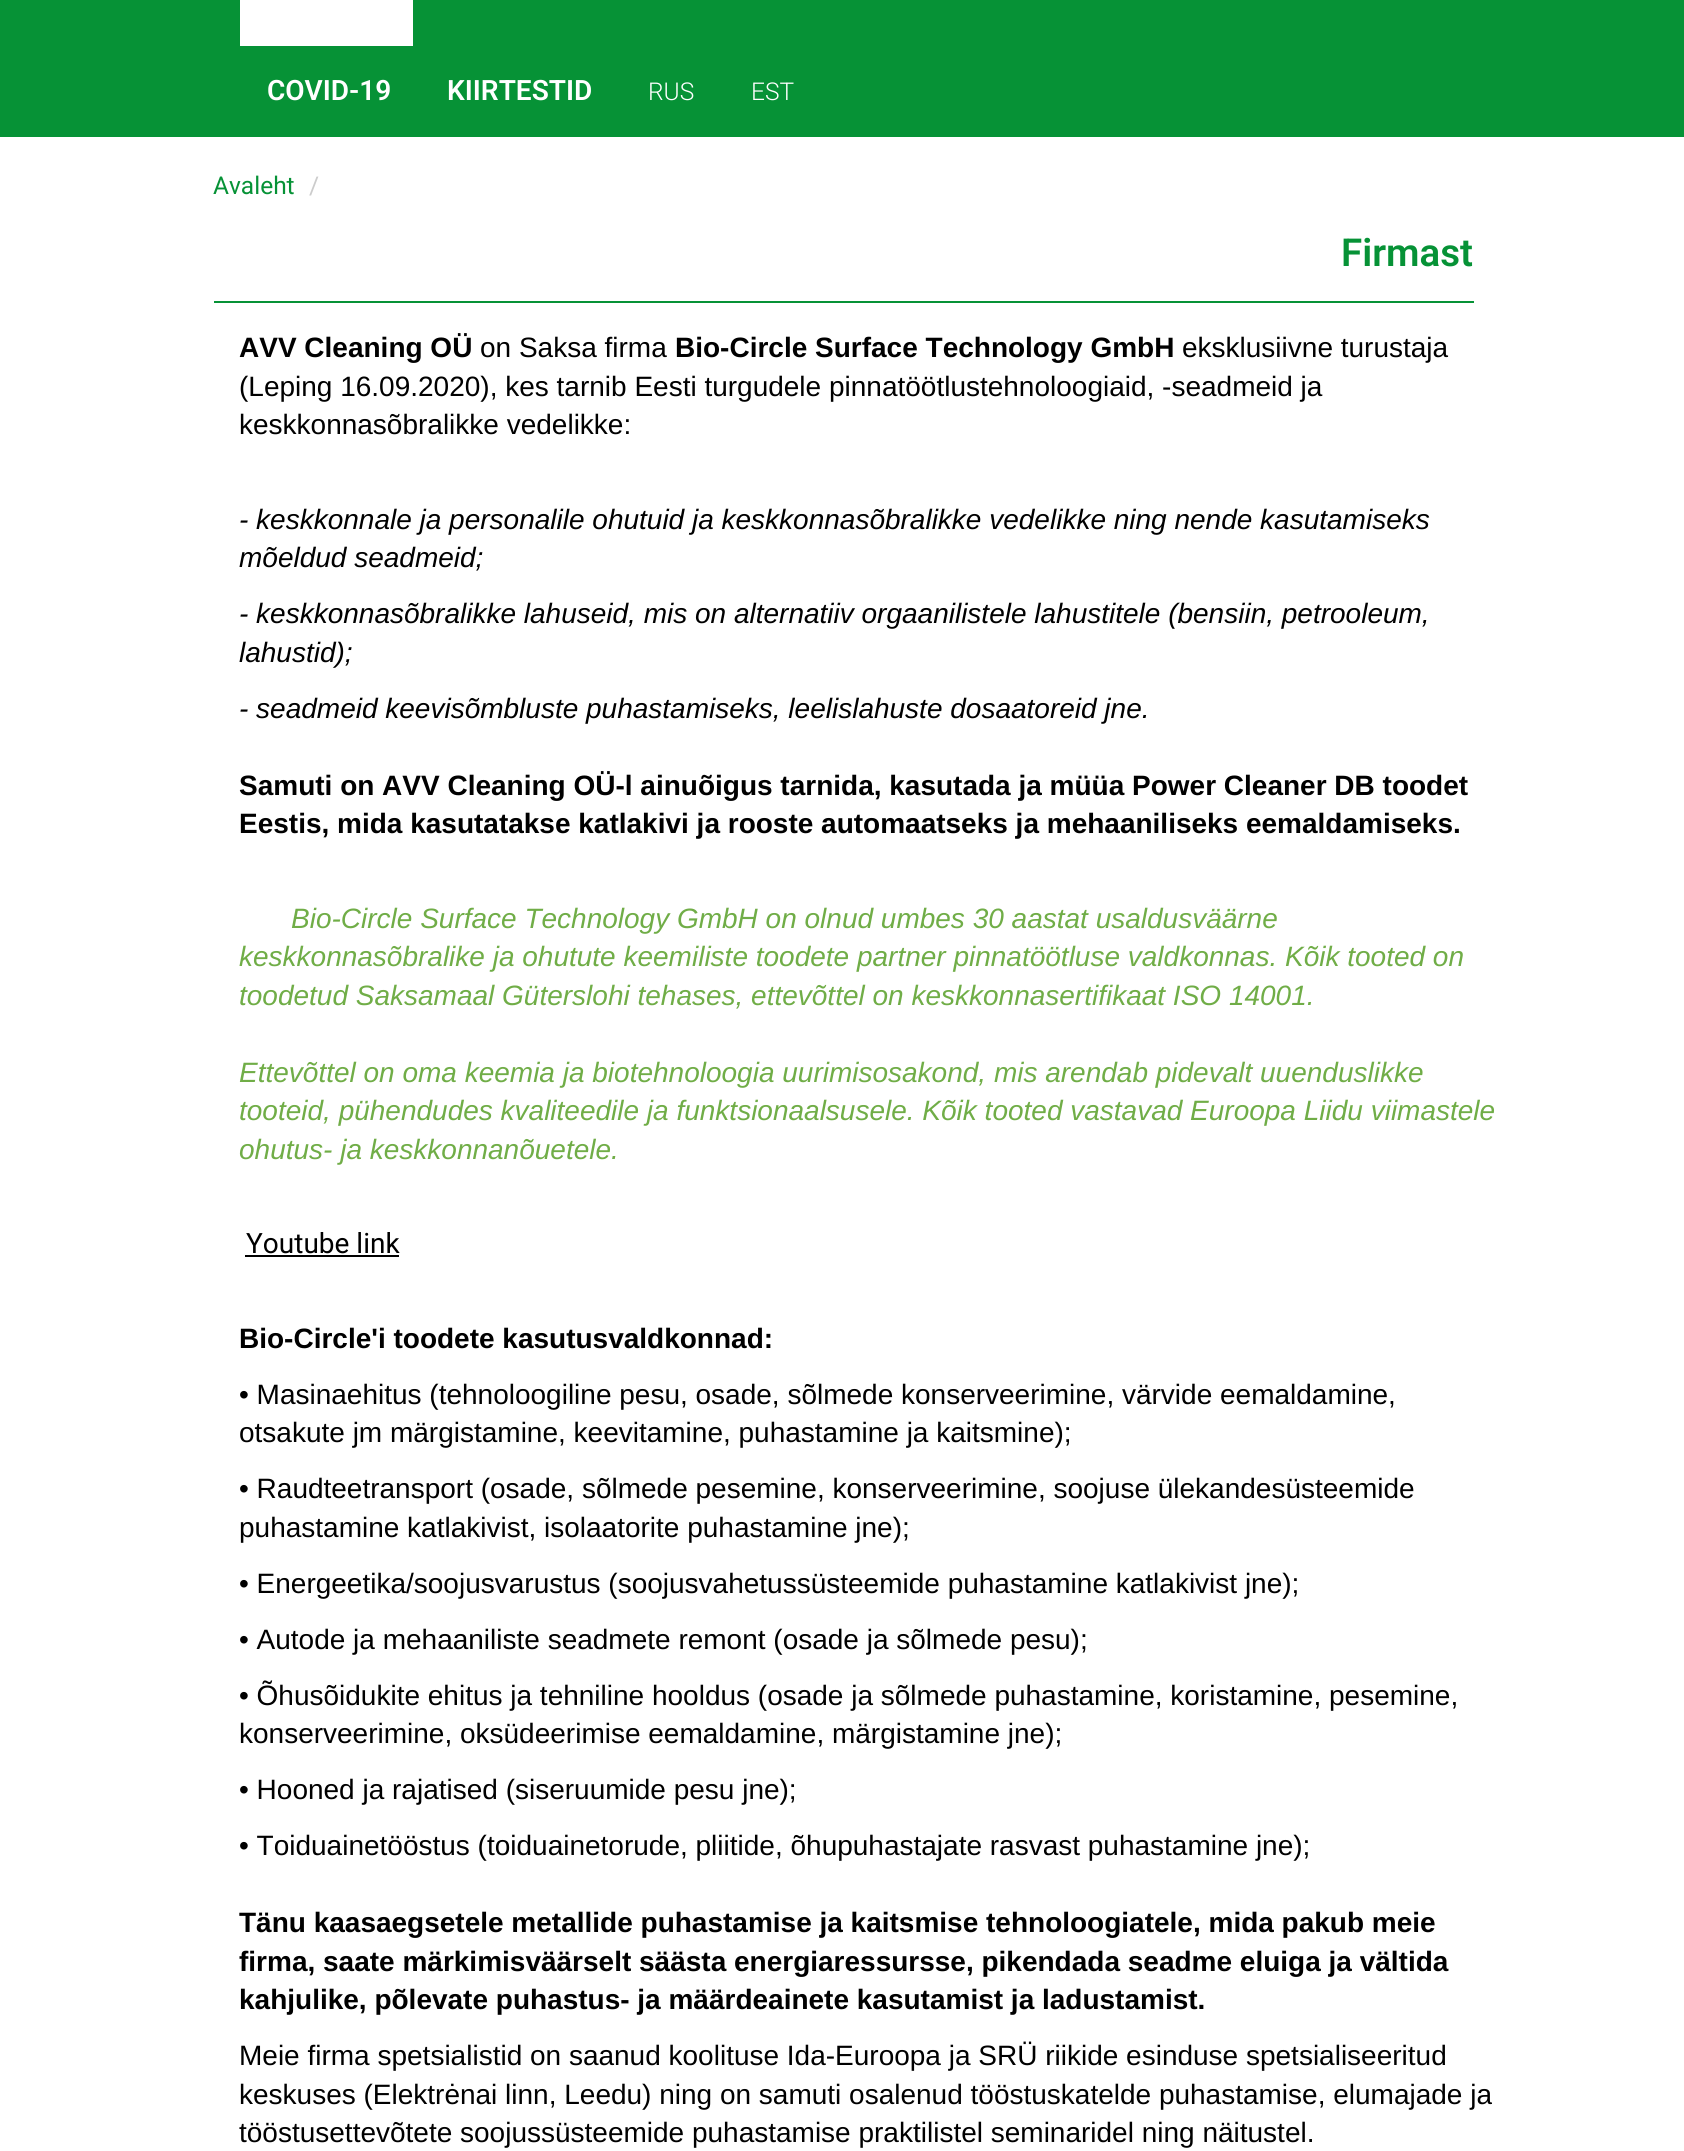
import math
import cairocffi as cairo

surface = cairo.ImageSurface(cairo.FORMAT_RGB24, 1684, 2151)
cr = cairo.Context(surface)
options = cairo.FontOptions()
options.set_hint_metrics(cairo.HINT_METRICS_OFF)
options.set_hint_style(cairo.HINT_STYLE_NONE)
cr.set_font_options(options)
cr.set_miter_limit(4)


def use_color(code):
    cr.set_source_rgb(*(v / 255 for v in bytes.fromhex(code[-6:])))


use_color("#ffffff")
cr.paint()
use_color("#069236")
cr.rectangle(0, 0, 1684, 137)
cr.fill()
use_color("#ffffff")
cr.rectangle(240, 0, 173, 46)
cr.fill()
cr.select_font_face("Roboto SemiBold")
cr.set_font_size(28)
cr.move_to(267, 100)
cr.show_text("COVID-19")
cr.move_to(447, 100)
cr.show_text("KIIRTESTID")
cr.select_font_face("Roboto Light")
cr.set_font_size(24.5)
cr.move_to(648, 100)
cr.show_text("RUS")
cr.move_to(751, 100)
cr.show_text("EST")
cr.select_font_face("Roboto")
use_color("#069236")
cr.move_to(213, 194)
cr.show_text("Avaleht")
use_color("#cccccc")
cr.move_to(309, 194)
cr.show_text("/")
use_color("#069236")
cr.rectangle(214, 301, 1260, 2)
cr.fill()
cr.select_font_face("Roboto SemiBold")
cr.set_font_size(38.5)
cr.move_to(1341, 266)
cr.show_text("Firmast")
cr.select_font_face("Liberation Sans", cairo.FONT_SLANT_NORMAL, cairo.FONT_WEIGHT_BOLD)
cr.set_font_size(28)
use_color("#000000")
cr.move_to(239, 357)
cr.show_text("AVV Cleaning OÜ")
cr.select_font_face("Liberation Sans")
cr.move_to(480, 357)
cr.show_text("on Saksa firma")
cr.select_font_face("Liberation Sans", cairo.FONT_SLANT_NORMAL, cairo.FONT_WEIGHT_BOLD)
cr.move_to(675, 357)
cr.show_text("Bio-Circle Surface Technology GmbH")
cr.select_font_face("Liberation Sans")
cr.move_to(1182, 357)
cr.show_text("eksklusiivne turustaja")
cr.move_to(239, 396)
cr.show_text("(Leping 16.09.2020), kes tarnib Eesti turgudele pinnatöötlustehnoloogiaid, -seadmeid ja")
cr.move_to(239, 434)
cr.show_text("keskkonnasõbralikke vedelikke:")
cr.select_font_face("Liberation Sans", cairo.FONT_SLANT_ITALIC)
cr.move_to(239, 529)
cr.show_text("- keskkonnale ja personalile ohutuid ja keskkonnasõbralikke vedelikke ning nende kasutamiseks")
cr.move_to(239, 567)
cr.show_text("mõeldud seadmeid;")
cr.move_to(239, 623)
cr.show_text("- keskkonnasõbralikke lahuseid, mis on alternatiiv orgaanilistele lahustitele (bensiin, petrooleum,")
cr.move_to(239, 662)
cr.show_text("lahustid);")
cr.move_to(239, 718)
cr.show_text("- seadmeid keevisõmbluste puhastamiseks, leelislahuste dosaatoreid jne.")
cr.select_font_face("Liberation Sans", cairo.FONT_SLANT_NORMAL, cairo.FONT_WEIGHT_BOLD)
cr.move_to(239, 795)
cr.show_text("Samuti on AVV Cleaning OÜ-l ainuõigus tarnida, kasutada ja müüa Power Cleaner DB toodet")
cr.move_to(239, 833)
cr.show_text("Eestis, mida kasutatakse katlakivi ja rooste automaatseks ja mehaaniliseks eemaldamiseks.")
cr.select_font_face("Liberation Sans", cairo.FONT_SLANT_ITALIC)
use_color("#70ad47")
cr.move_to(291, 928)
cr.show_text("Bio-Circle Surface Technology GmbH on olnud umbes 30 aastat usaldusväärne")
cr.move_to(239, 966)
cr.show_text("keskkonnasõbralike ja ohutute keemiliste toodete partner pinnatöötluse valdkonnas. Kõik tooted on")
cr.move_to(239, 1005)
cr.show_text("toodetud Saksamaal Güterslohi tehases, ettevõttel on keskkonnasertifikaat ISO 14001.")
cr.move_to(239, 1082)
cr.show_text("Ettevõttel on oma keemia ja biotehnoloogia uurimisosakond, mis arendab pidevalt uuenduslikke")
cr.move_to(239, 1120)
cr.show_text("tooteid, pühendudes kvaliteedile ja funktsionaalsusele. Kõik tooted vastavad Euroopa Liidu viimastele")
cr.move_to(239, 1159)
cr.show_text("ohutus- ja keskkonnanõuetele.")
cr.select_font_face("Roboto")
use_color("#000000")
cr.move_to(246, 1253)
cr.show_text("Youtube link")
cr.rectangle(245, 1255, 154, 2)
cr.fill()
cr.select_font_face("Liberation Sans", cairo.FONT_SLANT_NORMAL, cairo.FONT_WEIGHT_BOLD)
cr.move_to(239, 1348)
cr.show_text("Bio-Circle'i toodete kasutusvaldkonnad:")
cr.select_font_face("Liberation Sans")
cr.move_to(239, 1404)
cr.show_text("• Masinaehitus (tehnoloogiline pesu, osade, sõlmede konserveerimine, värvide eemaldamine,")
cr.move_to(239, 1442)
cr.show_text("otsakute jm märgistamine, keevitamine, puhastamine ja kaitsmine);")
cr.move_to(239, 1498)
cr.show_text("• Raudteetransport (osade, sõlmede pesemine, konserveerimine, soojuse ülekandesüsteemide")
cr.move_to(239, 1537)
cr.show_text("puhastamine katlakivist, isolaatorite puhastamine jne);")
cr.move_to(239, 1593)
cr.show_text("• Energeetika/soojusvarustus (soojusvahetussüsteemide puhastamine katlakivist jne);")
cr.move_to(239, 1649)
cr.show_text("• Autode ja mehaaniliste seadmete remont (osade ja sõlmede pesu);")
cr.move_to(239, 1705)
cr.show_text("• Õhusõidukite ehitus ja tehniline hooldus (osade ja sõlmede puhastamine, koristamine, pesemine,")
cr.move_to(239, 1743)
cr.show_text("konserveerimine, oksüdeerimise eemaldamine, märgistamine jne);")
cr.move_to(239, 1799)
cr.show_text("• Hooned ja rajatised (siseruumide pesu jne);")
cr.move_to(239, 1855)
cr.show_text("• Toiduainetööstus (toiduainetorude, pliitide, õhupuhastajate rasvast puhastamine jne);")
cr.select_font_face("Liberation Sans", cairo.FONT_SLANT_NORMAL, cairo.FONT_WEIGHT_BOLD)
cr.move_to(239, 1932)
cr.show_text("Tänu kaasaegsetele metallide puhastamise ja kaitsmise tehnoloogiatele, mida pakub meie")
cr.move_to(239, 1971)
cr.show_text("firma, saate märkimisväärselt säästa energiaressursse, pikendada seadme eluiga ja vältida")
cr.move_to(239, 2009)
cr.show_text("kahjulike, põlevate puhastus- ja määrdeainete kasutamist ja ladustamist.")
cr.select_font_face("Liberation Sans")
cr.move_to(239, 2065)
cr.show_text("Meie firma spetsialistid on saanud koolituse Ida-Euroopa ja SRÜ riikide esinduse spetsialiseeritud")
cr.move_to(239, 2104)
cr.show_text("keskuses (Elektrėnai linn, Leedu) ning on samuti osalenud tööstuskatelde puhastamise, elumajade ja")
cr.move_to(239, 2142)
cr.show_text("tööstusettevõtete soojussüsteemide puhastamise praktilistel seminaridel ning näitustel.")
surface.write_to_png("result.png")
